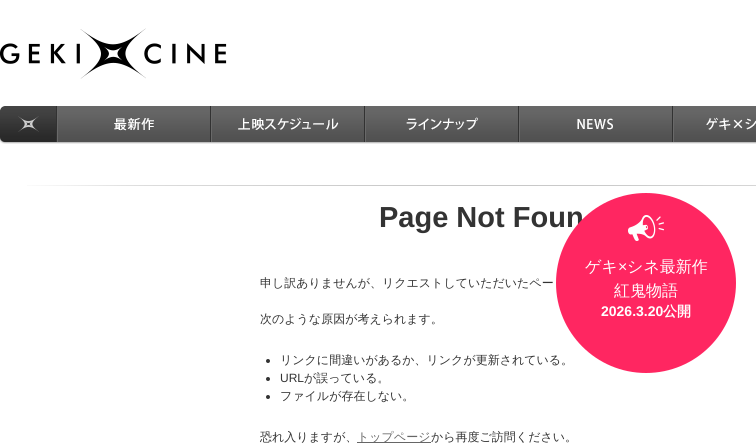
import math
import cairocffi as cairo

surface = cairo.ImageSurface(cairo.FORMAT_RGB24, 756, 443)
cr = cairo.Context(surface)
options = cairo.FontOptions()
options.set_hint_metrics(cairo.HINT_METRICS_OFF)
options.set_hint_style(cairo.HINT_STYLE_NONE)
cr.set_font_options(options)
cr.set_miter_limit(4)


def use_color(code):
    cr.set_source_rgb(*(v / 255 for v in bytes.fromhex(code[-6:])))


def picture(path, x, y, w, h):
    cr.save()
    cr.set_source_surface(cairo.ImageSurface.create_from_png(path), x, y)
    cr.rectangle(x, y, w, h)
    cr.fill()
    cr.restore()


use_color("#ffffff")
cr.paint()
picture("img1.png", 0, 28, 227, 51)
picture("img2.png", 0, 106, 58, 38)
picture("img3.png", 58, 106, 154, 38)
picture("img4.png", 212, 106, 154, 38)
picture("img5.png", 366, 106, 154, 38)
picture("img6.png", 520, 106, 154, 38)
picture("img7.png", 674, 106, 82, 38)
picture("img8.png", 27, 185, 729, 1)
cr.select_font_face("Liberation Sans", cairo.FONT_SLANT_NORMAL, cairo.FONT_WEIGHT_BOLD)
cr.set_font_size(29)
use_color("#333333")
cr.move_to(379, 227)
cr.show_text("Page Not Foun")
cr.select_font_face("WenQuanYi Zen Hei Medium")
cr.set_font_size(12)
cr.move_to(260, 287)
cr.show_text("申し訳ありませんが、リクエストしていただいたペー")
cr.move_to(260, 323)
cr.show_text("次のような原因が考えられます。")
cr.new_path()
cr.arc(268, 361, 2, 0, 2 * math.pi)
cr.fill()
cr.move_to(280, 364)
cr.show_text("リンクに間違いがあるか、リンクが更新されている。")
cr.new_path()
cr.arc(268, 379, 2, 0, 2 * math.pi)
cr.fill()
cr.select_font_face("Liberation Sans")
cr.move_to(280, 382)
cr.show_text("URL")
cr.select_font_face("WenQuanYi Zen Hei Medium")
cr.move_to(304, 382)
cr.show_text("が誤っている。")
cr.new_path()
cr.arc(268, 397, 2, 0, 2 * math.pi)
cr.fill()
cr.move_to(280, 400)
cr.show_text("ファイルが存在しない。")
cr.move_to(260, 441)
cr.show_text("恐れ入りますが、")
use_color("#666666")
cr.rectangle(357, 442, 74, 1)
cr.fill()
cr.move_to(357, 441)
cr.show_text("トップページ")
use_color("#333333")
cr.move_to(431, 441)
cr.show_text("から再度ご訪問ください。")
use_color("#ff2661")
cr.new_path()
cr.arc(646, 283, 90, 0, 2 * math.pi)
cr.fill()
picture("img9.png", 628, 215, 36, 26)
cr.set_font_size(16)
use_color("#ffffff")
cr.move_to(585, 272)
cr.show_text("ゲキ")
cr.select_font_face("Liberation Sans")
cr.move_to(618, 272)
cr.show_text("×")
cr.select_font_face("WenQuanYi Zen Hei Medium")
cr.move_to(627, 272)
cr.show_text("シネ最新作")
cr.move_to(614, 296)
cr.show_text("紅鬼物語")
cr.select_font_face("Liberation Sans", cairo.FONT_SLANT_NORMAL, cairo.FONT_WEIGHT_BOLD)
cr.set_font_size(14)
cr.move_to(601, 316)
cr.show_text("2026.3.20")
cr.select_font_face("WenQuanYi Zen Hei", cairo.FONT_SLANT_NORMAL, cairo.FONT_WEIGHT_BOLD)
cr.move_to(663, 316)
cr.show_text("公開")
surface.write_to_png("result.png")
